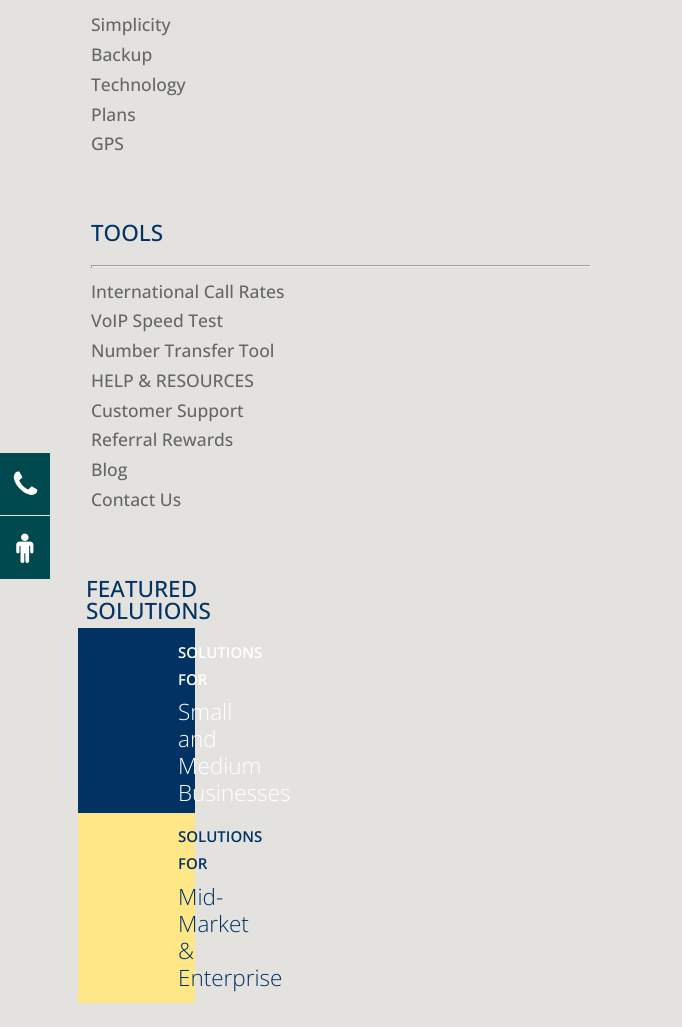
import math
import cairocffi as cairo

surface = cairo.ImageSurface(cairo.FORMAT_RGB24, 682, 1027)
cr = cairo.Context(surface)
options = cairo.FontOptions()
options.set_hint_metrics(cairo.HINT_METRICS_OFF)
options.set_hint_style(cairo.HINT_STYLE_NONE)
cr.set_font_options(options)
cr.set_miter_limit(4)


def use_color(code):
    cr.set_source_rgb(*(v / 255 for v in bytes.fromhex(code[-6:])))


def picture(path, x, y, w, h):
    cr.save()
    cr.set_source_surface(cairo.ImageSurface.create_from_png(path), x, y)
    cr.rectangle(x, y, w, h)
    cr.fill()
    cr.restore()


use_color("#e3e2de")
cr.paint()
use_color("#00494f")
cr.rectangle(0, 453, 50, 62)
cr.fill()
picture("img1.png", 13, 471, 25, 24)
cr.rectangle(0, 516, 50, 63)
cr.fill()
picture("img2.png", 16, 533, 18, 30)
cr.select_font_face("Open Sans Medium")
cr.set_font_size(17.5)
use_color("#666666")
cr.move_to(91, 31)
cr.show_text("Simplicity")
cr.move_to(91, 61)
cr.show_text("Backup")
cr.move_to(91, 91)
cr.show_text("Technology")
cr.move_to(91, 121)
cr.show_text("Plans")
cr.move_to(91, 150)
cr.show_text("GPS")
cr.set_font_size(22.5)
use_color("#003264")
cr.move_to(91, 241)
cr.show_text("TOOLS")
use_color("#9f9f9f")
cr.rectangle(91, 265, 500, 1)
cr.fill()
use_color("#eeeeee")
cr.rectangle(590, 265, 1, 3)
cr.fill()
cr.rectangle(91, 266, 500, 1)
cr.fill()
use_color("#9f9f9f")
cr.rectangle(91, 265, 1, 3)
cr.fill()
cr.set_font_size(17.5)
use_color("#666666")
cr.move_to(91, 298)
cr.show_text("International Call Rates")
cr.move_to(91, 327)
cr.show_text("VoIP Speed Test")
cr.move_to(91, 357)
cr.show_text("Number Transfer Tool")
cr.move_to(91, 387)
cr.show_text("HELP & RESOURCES")
cr.move_to(91, 417)
cr.show_text("Customer Support")
cr.move_to(91, 446)
cr.show_text("Referral Rewards")
cr.move_to(91, 476)
cr.show_text("Blog")
cr.move_to(91, 506)
cr.show_text("Contact Us")
cr.set_font_size(22.5)
use_color("#003264")
cr.move_to(86, 597)
cr.show_text("FEATURED")
cr.move_to(86, 619)
cr.show_text("SOLUTIONS")
cr.rectangle(78, 628, 117, 185)
cr.fill()
cr.select_font_face("Open Sans SemiBold")
cr.set_font_size(15)
use_color("#ffffff")
cr.move_to(178, 658)
cr.show_text("SOLUTIONS")
cr.move_to(178, 685)
cr.show_text("FOR")
cr.select_font_face("Open Sans Light")
cr.set_font_size(22.5)
cr.move_to(178, 720)
cr.show_text("Small")
cr.move_to(178, 747)
cr.show_text("and")
cr.move_to(178, 774)
cr.show_text("Medium")
cr.move_to(178, 801)
cr.show_text("Businesses")
use_color("#ffe687")
cr.rectangle(78, 813, 117, 190)
cr.fill()
cr.select_font_face("Open Sans SemiBold")
cr.set_font_size(15)
use_color("#003264")
cr.move_to(178, 842)
cr.show_text("SOLUTIONS")
cr.move_to(178, 869)
cr.show_text("FOR")
cr.select_font_face("Open Sans Light")
cr.set_font_size(22.5)
cr.move_to(178, 905)
cr.show_text("Mid-")
cr.move_to(178, 932)
cr.show_text("Market")
cr.move_to(178, 959)
cr.show_text("&")
cr.move_to(178, 986)
cr.show_text("Enterprise")
surface.write_to_png("result.png")
